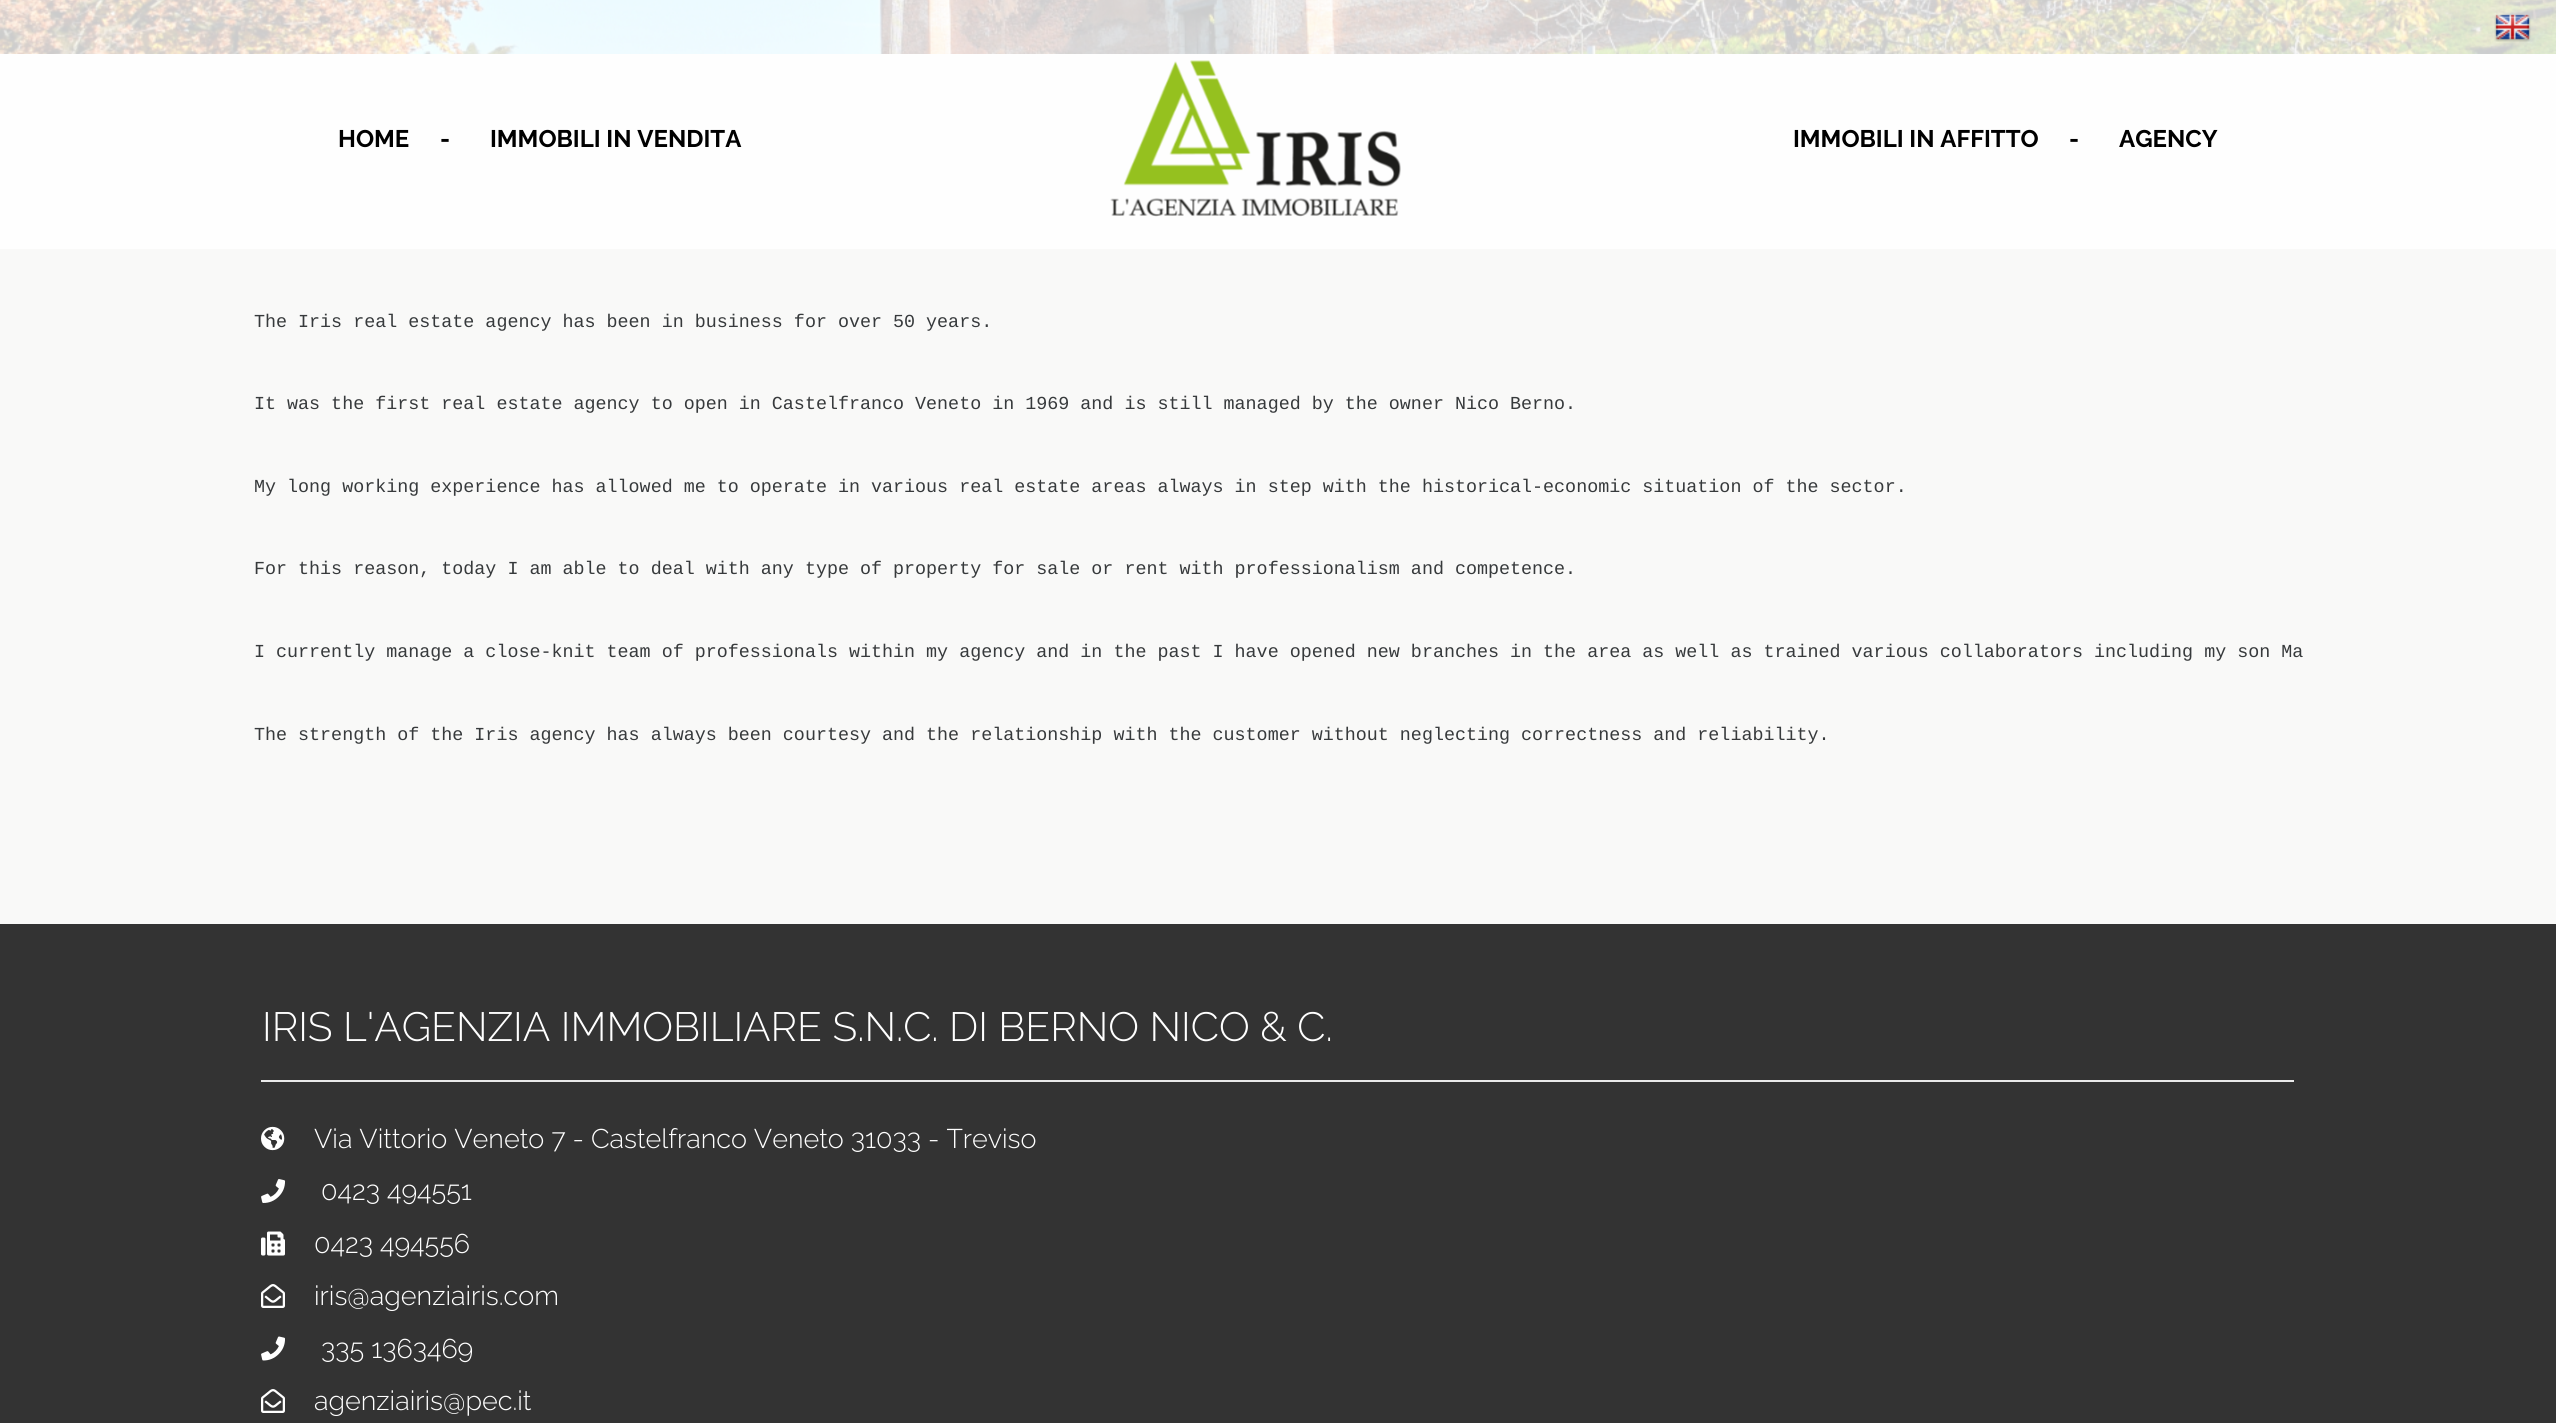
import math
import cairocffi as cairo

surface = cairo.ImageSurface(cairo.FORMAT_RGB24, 2556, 1423)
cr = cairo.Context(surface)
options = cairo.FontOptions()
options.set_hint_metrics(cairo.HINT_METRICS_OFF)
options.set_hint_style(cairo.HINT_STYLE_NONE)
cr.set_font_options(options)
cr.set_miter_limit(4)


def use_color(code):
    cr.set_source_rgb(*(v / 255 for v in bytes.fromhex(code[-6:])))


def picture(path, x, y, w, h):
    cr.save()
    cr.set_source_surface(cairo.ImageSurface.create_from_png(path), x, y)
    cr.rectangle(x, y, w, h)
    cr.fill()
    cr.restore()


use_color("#f9f9f8")
cr.paint()
picture("img1.png", 0, 0, 2556, 54)
cr.set_source_rgba(1, 1, 1, 0.8)
cr.rectangle(0, 0, 2556, 249)
cr.fill()
picture("img2.png", 2494, 14, 37, 28)
cr.select_font_face("Raleway", cairo.FONT_SLANT_NORMAL, cairo.FONT_WEIGHT_BOLD)
cr.set_font_size(24)
use_color("#000000")
cr.move_to(338, 147)
cr.show_text("HOME")
cr.move_to(440, 147)
cr.show_text("-")
cr.move_to(490, 147)
cr.show_text("IMMOBILI IN VENDITA")
picture("img3.png", 1110, 60, 291, 157)
cr.move_to(1793, 147)
cr.show_text("IMMOBILI IN AFFITTO")
cr.move_to(2069, 147)
cr.show_text("-")
cr.move_to(2119, 147)
cr.show_text("AGENCY")
cr.select_font_face("Liberation Mono")
cr.set_font_size(18.36)
use_color("#373a3c")
cr.move_to(254, 327)
cr.show_text("The Iris real estate agency has been in business for over 50 years.")
cr.move_to(254, 409)
cr.show_text("It was the first real estate agency to open in Castelfranco Veneto in 1969 and is still managed by the owner Nico Berno.")
cr.move_to(254, 492)
cr.show_text("My long working experience has allowed me to operate in various real estate areas always in step with the historical-economic situation of the sector.")
cr.move_to(254, 574)
cr.show_text("For this reason, today I am able to deal with any type of property for sale or rent with professionalism and competence.")
cr.move_to(254, 657)
cr.show_text("I currently manage a close-knit team of professionals within my agency and in the past I have opened new branches in the area as well as trained various collaborators including my son Ma")
cr.move_to(254, 740)
cr.show_text("The strength of the Iris agency has always been courtesy and the relationship with the customer without neglecting correctness and reliability.")
use_color("#333333")
cr.rectangle(0, 924, 2556, 499)
cr.fill()
cr.select_font_face("Raleway Light")
cr.set_font_size(40.8)
use_color("#ffffff")
cr.move_to(262, 1041)
cr.show_text("IRIS L'AGENZIA IMMOBILIARE S.N.C. DI BERNO NICO & C.")
use_color("#eaeaea")
cr.rectangle(261, 1080, 2033, 2)
cr.fill()
picture("img4.png", 261, 1126, 24, 25)
cr.set_font_size(27)
use_color("#ffffff")
cr.move_to(314, 1148)
cr.show_text("Via Vittorio Veneto 7 - Castelfranco Veneto 31033 - Treviso")
picture("img5.png", 261, 1179, 25, 24)
cr.move_to(321, 1200)
cr.show_text("0423 494551")
picture("img6.png", 261, 1231, 24, 25)
cr.move_to(314, 1253)
cr.show_text("0423 494556")
picture("img7.png", 261, 1284, 24, 24)
cr.move_to(314, 1305)
cr.show_text("iris@agenziairis.com")
picture("img8.png", 261, 1336, 24, 25)
cr.move_to(321, 1358)
cr.show_text("335 1363469")
picture("img7.png", 261, 1389, 24, 24)
cr.move_to(314, 1410)
cr.show_text("agenziairis@pec.it")
surface.write_to_png("result.png")
